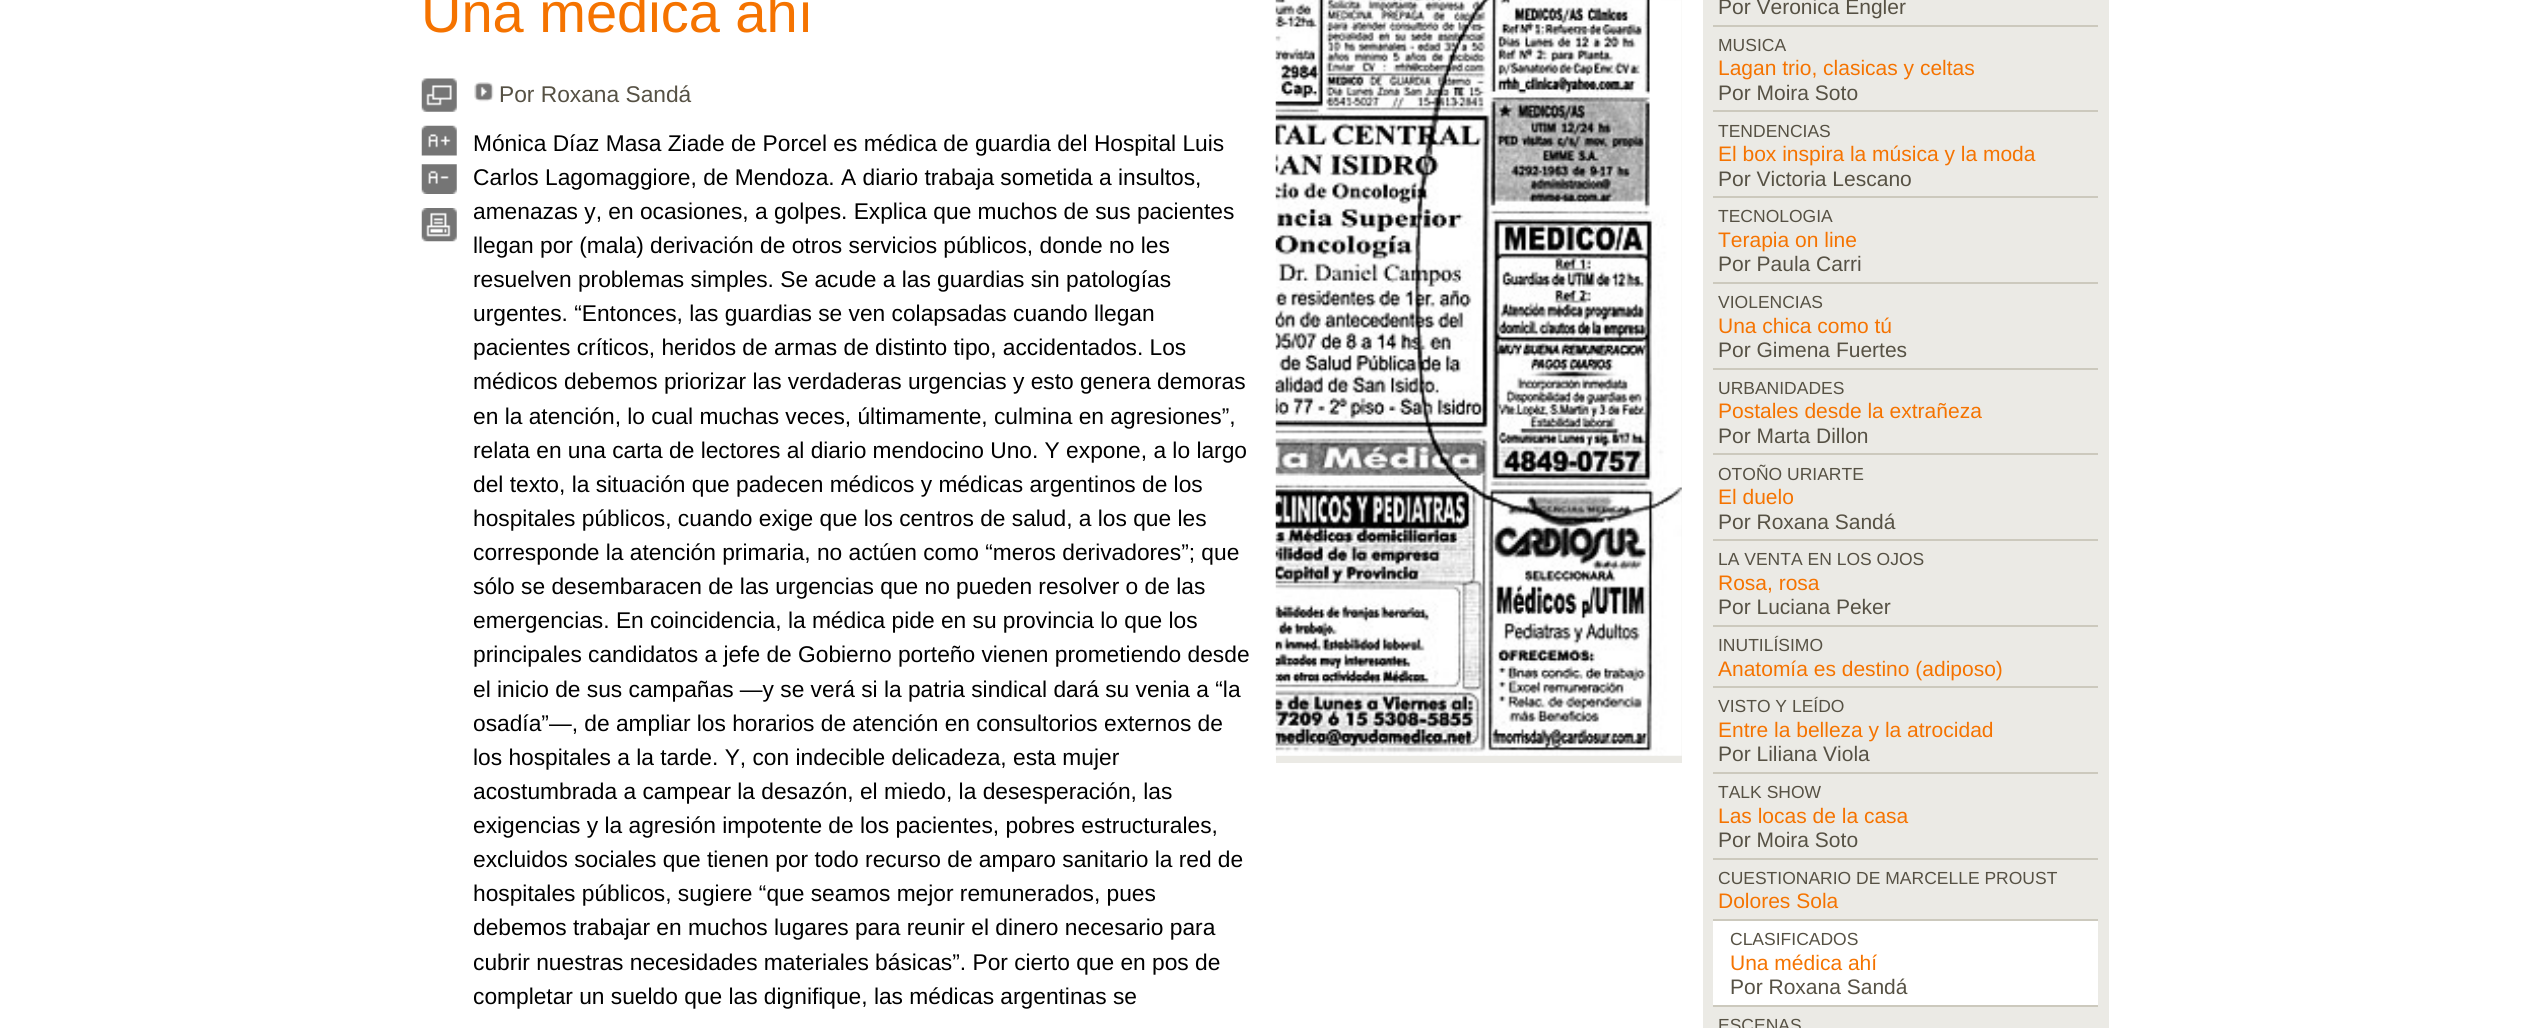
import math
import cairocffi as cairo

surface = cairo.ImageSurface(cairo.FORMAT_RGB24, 2528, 1028)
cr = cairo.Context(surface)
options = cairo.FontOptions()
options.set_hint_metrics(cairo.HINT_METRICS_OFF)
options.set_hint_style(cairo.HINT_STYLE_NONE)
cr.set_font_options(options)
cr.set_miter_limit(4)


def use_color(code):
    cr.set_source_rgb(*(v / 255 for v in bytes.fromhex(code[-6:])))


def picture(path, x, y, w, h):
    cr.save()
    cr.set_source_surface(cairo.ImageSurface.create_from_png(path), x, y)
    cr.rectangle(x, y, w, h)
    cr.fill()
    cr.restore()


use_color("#ffffff")
cr.paint()
cr.select_font_face("Liberation Sans")
cr.set_font_size(56)
use_color("#f57300")
cr.move_to(421, 32)
cr.show_text("Una médica ahí")
picture("img1.png", 421, 78, 36, 34)
picture("img2.png", 421, 125, 36, 31)
picture("img3.png", 421, 164, 36, 30)
picture("img4.png", 421, 208, 36, 34)
picture("img5.png", 474, 82, 20, 20)
cr.set_font_size(22.75)
use_color("#565144")
cr.move_to(499, 102)
cr.show_text("Por Roxana Sandá")
use_color("#000000")
cr.move_to(473, 151)
cr.show_text("Mónica Díaz Masa Ziade de Porcel es médica de guardia del Hospital Luis")
cr.move_to(473, 185)
cr.show_text("Carlos Lagomaggiore, de Mendoza. A diario trabaja sometida a insultos,")
cr.move_to(473, 219)
cr.show_text("amenazas y, en ocasiones, a golpes. Explica que muchos de sus pacientes")
cr.move_to(473, 253)
cr.show_text("llegan por (mala) derivación de otros servicios públicos, donde no les")
cr.move_to(473, 287)
cr.show_text("resuelven problemas simples. Se acude a las guardias sin patologías")
cr.move_to(473, 321)
cr.show_text("urgentes. “Entonces, las guardias se ven colapsadas cuando llegan")
cr.move_to(473, 355)
cr.show_text("pacientes críticos, heridos de armas de distinto tipo, accidentados. Los")
cr.move_to(473, 389)
cr.show_text("médicos debemos priorizar las verdaderas urgencias y esto genera demoras")
cr.move_to(473, 424)
cr.show_text("en la atención, lo cual muchas veces, últimamente, culmina en agresiones”,")
cr.move_to(473, 458)
cr.show_text("relata en una carta de lectores al diario mendocino Uno. Y expone, a lo largo")
cr.move_to(473, 492)
cr.show_text("del texto, la situación que padecen médicos y médicas argentinos de los")
cr.move_to(473, 526)
cr.show_text("hospitales públicos, cuando exige que los centros de salud, a los que les")
cr.move_to(473, 560)
cr.show_text("corresponde la atención primaria, no actúen como “meros derivadores”; que")
cr.move_to(473, 594)
cr.show_text("sólo se desembaracen de las urgencias que no pueden resolver o de las")
cr.move_to(473, 628)
cr.show_text("emergencias. En coincidencia, la médica pide en su provincia lo que los")
cr.move_to(473, 662)
cr.show_text("principales candidatos a jefe de Gobierno porteño vienen prometiendo desde")
cr.move_to(473, 697)
cr.show_text("el inicio de sus campañas —y se verá si la patria sindical dará su venia a “la")
cr.move_to(473, 731)
cr.show_text("osadía”—, de ampliar los horarios de atención en consultorios externos de")
cr.move_to(473, 765)
cr.show_text("los hospitales a la tarde. Y, con indecible delicadeza, esta mujer")
cr.move_to(473, 799)
cr.show_text("acostumbrada a campear la desazón, el miedo, la desesperación, las")
cr.move_to(473, 833)
cr.show_text("exigencias y la agresión impotente de los pacientes, pobres estructurales,")
cr.move_to(473, 867)
cr.show_text("excluidos sociales que tienen por todo recurso de amparo sanitario la red de")
cr.move_to(473, 901)
cr.show_text("hospitales públicos, sugiere “que seamos mejor remunerados, pues")
cr.move_to(473, 935)
cr.show_text("debemos trabajar en muchos lugares para reunir el dinero necesario para")
cr.move_to(473, 970)
cr.show_text("cubrir nuestras necesidades materiales básicas”. Por cierto que en pos de")
cr.move_to(473, 1004)
cr.show_text("completar un sueldo que las dignifique, las médicas argentinas se")
use_color("#ebeae5")
cr.rectangle(1276, 0, 406, 763)
cr.fill()
picture("img6.png", 1275, 0, 407, 756)
cr.rectangle(1703, 0, 406, 1028)
cr.fill()
cr.set_font_size(21)
use_color("#565144")
cr.move_to(1718, 14)
cr.show_text("Por Veronica Engler")
use_color("#ccc9bd")
cr.rectangle(1713, 25, 385, 2)
cr.fill()
cr.set_font_size(17.5)
use_color("#565144")
cr.move_to(1718, 51)
cr.show_text("MUSICA")
cr.set_font_size(21)
use_color("#f57300")
cr.move_to(1718, 75)
cr.show_text("Lagan trio, clasicas y celtas")
use_color("#565144")
cr.move_to(1718, 100)
cr.show_text("Por Moira Soto")
use_color("#ccc9bd")
cr.rectangle(1713, 110, 385, 2)
cr.fill()
cr.set_font_size(17.5)
use_color("#565144")
cr.move_to(1718, 137)
cr.show_text("TENDENCIAS")
cr.set_font_size(21)
use_color("#f57300")
cr.move_to(1718, 161)
cr.show_text("El box inspira la música y la moda")
use_color("#565144")
cr.move_to(1718, 186)
cr.show_text("Por Victoria Lescano")
use_color("#ccc9bd")
cr.rectangle(1713, 196, 385, 2)
cr.fill()
cr.set_font_size(17.5)
use_color("#565144")
cr.move_to(1718, 222)
cr.show_text("TECNOLOGIA")
cr.set_font_size(21)
use_color("#f57300")
cr.move_to(1718, 247)
cr.show_text("Terapia on line")
use_color("#565144")
cr.move_to(1718, 271)
cr.show_text("Por Paula Carri")
use_color("#ccc9bd")
cr.rectangle(1713, 282, 385, 2)
cr.fill()
cr.set_font_size(17.5)
use_color("#565144")
cr.move_to(1718, 308)
cr.show_text("VIOLENCIAS")
cr.set_font_size(21)
use_color("#f57300")
cr.move_to(1718, 333)
cr.show_text("Una chica como tú")
use_color("#565144")
cr.move_to(1718, 357)
cr.show_text("Por Gimena Fuertes")
use_color("#ccc9bd")
cr.rectangle(1713, 368, 385, 2)
cr.fill()
cr.set_font_size(17.5)
use_color("#565144")
cr.move_to(1718, 394)
cr.show_text("URBANIDADES")
cr.set_font_size(21)
use_color("#f57300")
cr.move_to(1718, 418)
cr.show_text("Postales desde la extrañeza")
use_color("#565144")
cr.move_to(1718, 443)
cr.show_text("Por Marta Dillon")
use_color("#ccc9bd")
cr.rectangle(1713, 453, 385, 2)
cr.fill()
cr.set_font_size(17.5)
use_color("#565144")
cr.move_to(1718, 480)
cr.show_text("OTOÑO URIARTE")
cr.set_font_size(21)
use_color("#f57300")
cr.move_to(1718, 504)
cr.show_text("El duelo")
use_color("#565144")
cr.move_to(1718, 529)
cr.show_text("Por Roxana Sandá")
use_color("#ccc9bd")
cr.rectangle(1713, 539, 385, 2)
cr.fill()
cr.set_font_size(17.5)
use_color("#565144")
cr.move_to(1718, 565)
cr.show_text("LA VENTA EN LOS OJOS")
cr.set_font_size(21)
use_color("#f57300")
cr.move_to(1718, 590)
cr.show_text("Rosa, rosa")
use_color("#565144")
cr.move_to(1718, 614)
cr.show_text("Por Luciana Peker")
use_color("#ccc9bd")
cr.rectangle(1713, 625, 385, 2)
cr.fill()
cr.set_font_size(17.5)
use_color("#565144")
cr.move_to(1718, 651)
cr.show_text("INUTILÍSIMO")
cr.set_font_size(21)
use_color("#f57300")
cr.move_to(1718, 676)
cr.show_text("Anatomía es destino (adiposo)")
use_color("#ccc9bd")
cr.rectangle(1713, 686, 385, 2)
cr.fill()
cr.set_font_size(17.5)
use_color("#565144")
cr.move_to(1718, 712)
cr.show_text("VISTO Y LEÍDO")
cr.set_font_size(21)
use_color("#f57300")
cr.move_to(1718, 737)
cr.show_text("Entre la belleza y la atrocidad")
use_color("#565144")
cr.move_to(1718, 761)
cr.show_text("Por Liliana Viola")
use_color("#ccc9bd")
cr.rectangle(1713, 772, 385, 2)
cr.fill()
cr.set_font_size(17.5)
use_color("#565144")
cr.move_to(1718, 798)
cr.show_text("TALK SHOW")
cr.set_font_size(21)
use_color("#f57300")
cr.move_to(1718, 823)
cr.show_text("Las locas de la casa")
use_color("#565144")
cr.move_to(1718, 847)
cr.show_text("Por Moira Soto")
use_color("#ccc9bd")
cr.rectangle(1713, 858, 385, 2)
cr.fill()
cr.set_font_size(17.5)
use_color("#565144")
cr.move_to(1718, 884)
cr.show_text("CUESTIONARIO DE MARCELLE PROUST")
cr.set_font_size(21)
use_color("#f57300")
cr.move_to(1718, 908)
cr.show_text("Dolores Sola")
use_color("#ffffff")
cr.rectangle(1713, 921, 385, 84)
cr.fill()
use_color("#ccc9bd")
cr.rectangle(1713, 919, 385, 2)
cr.fill()
cr.set_font_size(17.5)
use_color("#565144")
cr.move_to(1730, 945)
cr.show_text("CLASIFICADOS")
cr.set_font_size(21)
use_color("#f57300")
cr.move_to(1730, 970)
cr.show_text("Una médica ahí")
use_color("#565144")
cr.move_to(1730, 994)
cr.show_text("Por Roxana Sandá")
use_color("#ccc9bd")
cr.rectangle(1713, 1005, 385, 2)
cr.fill()
cr.set_font_size(17.5)
use_color("#565144")
cr.move_to(1718, 1031)
cr.show_text("ESCENAS")
surface.write_to_png("result.png")
